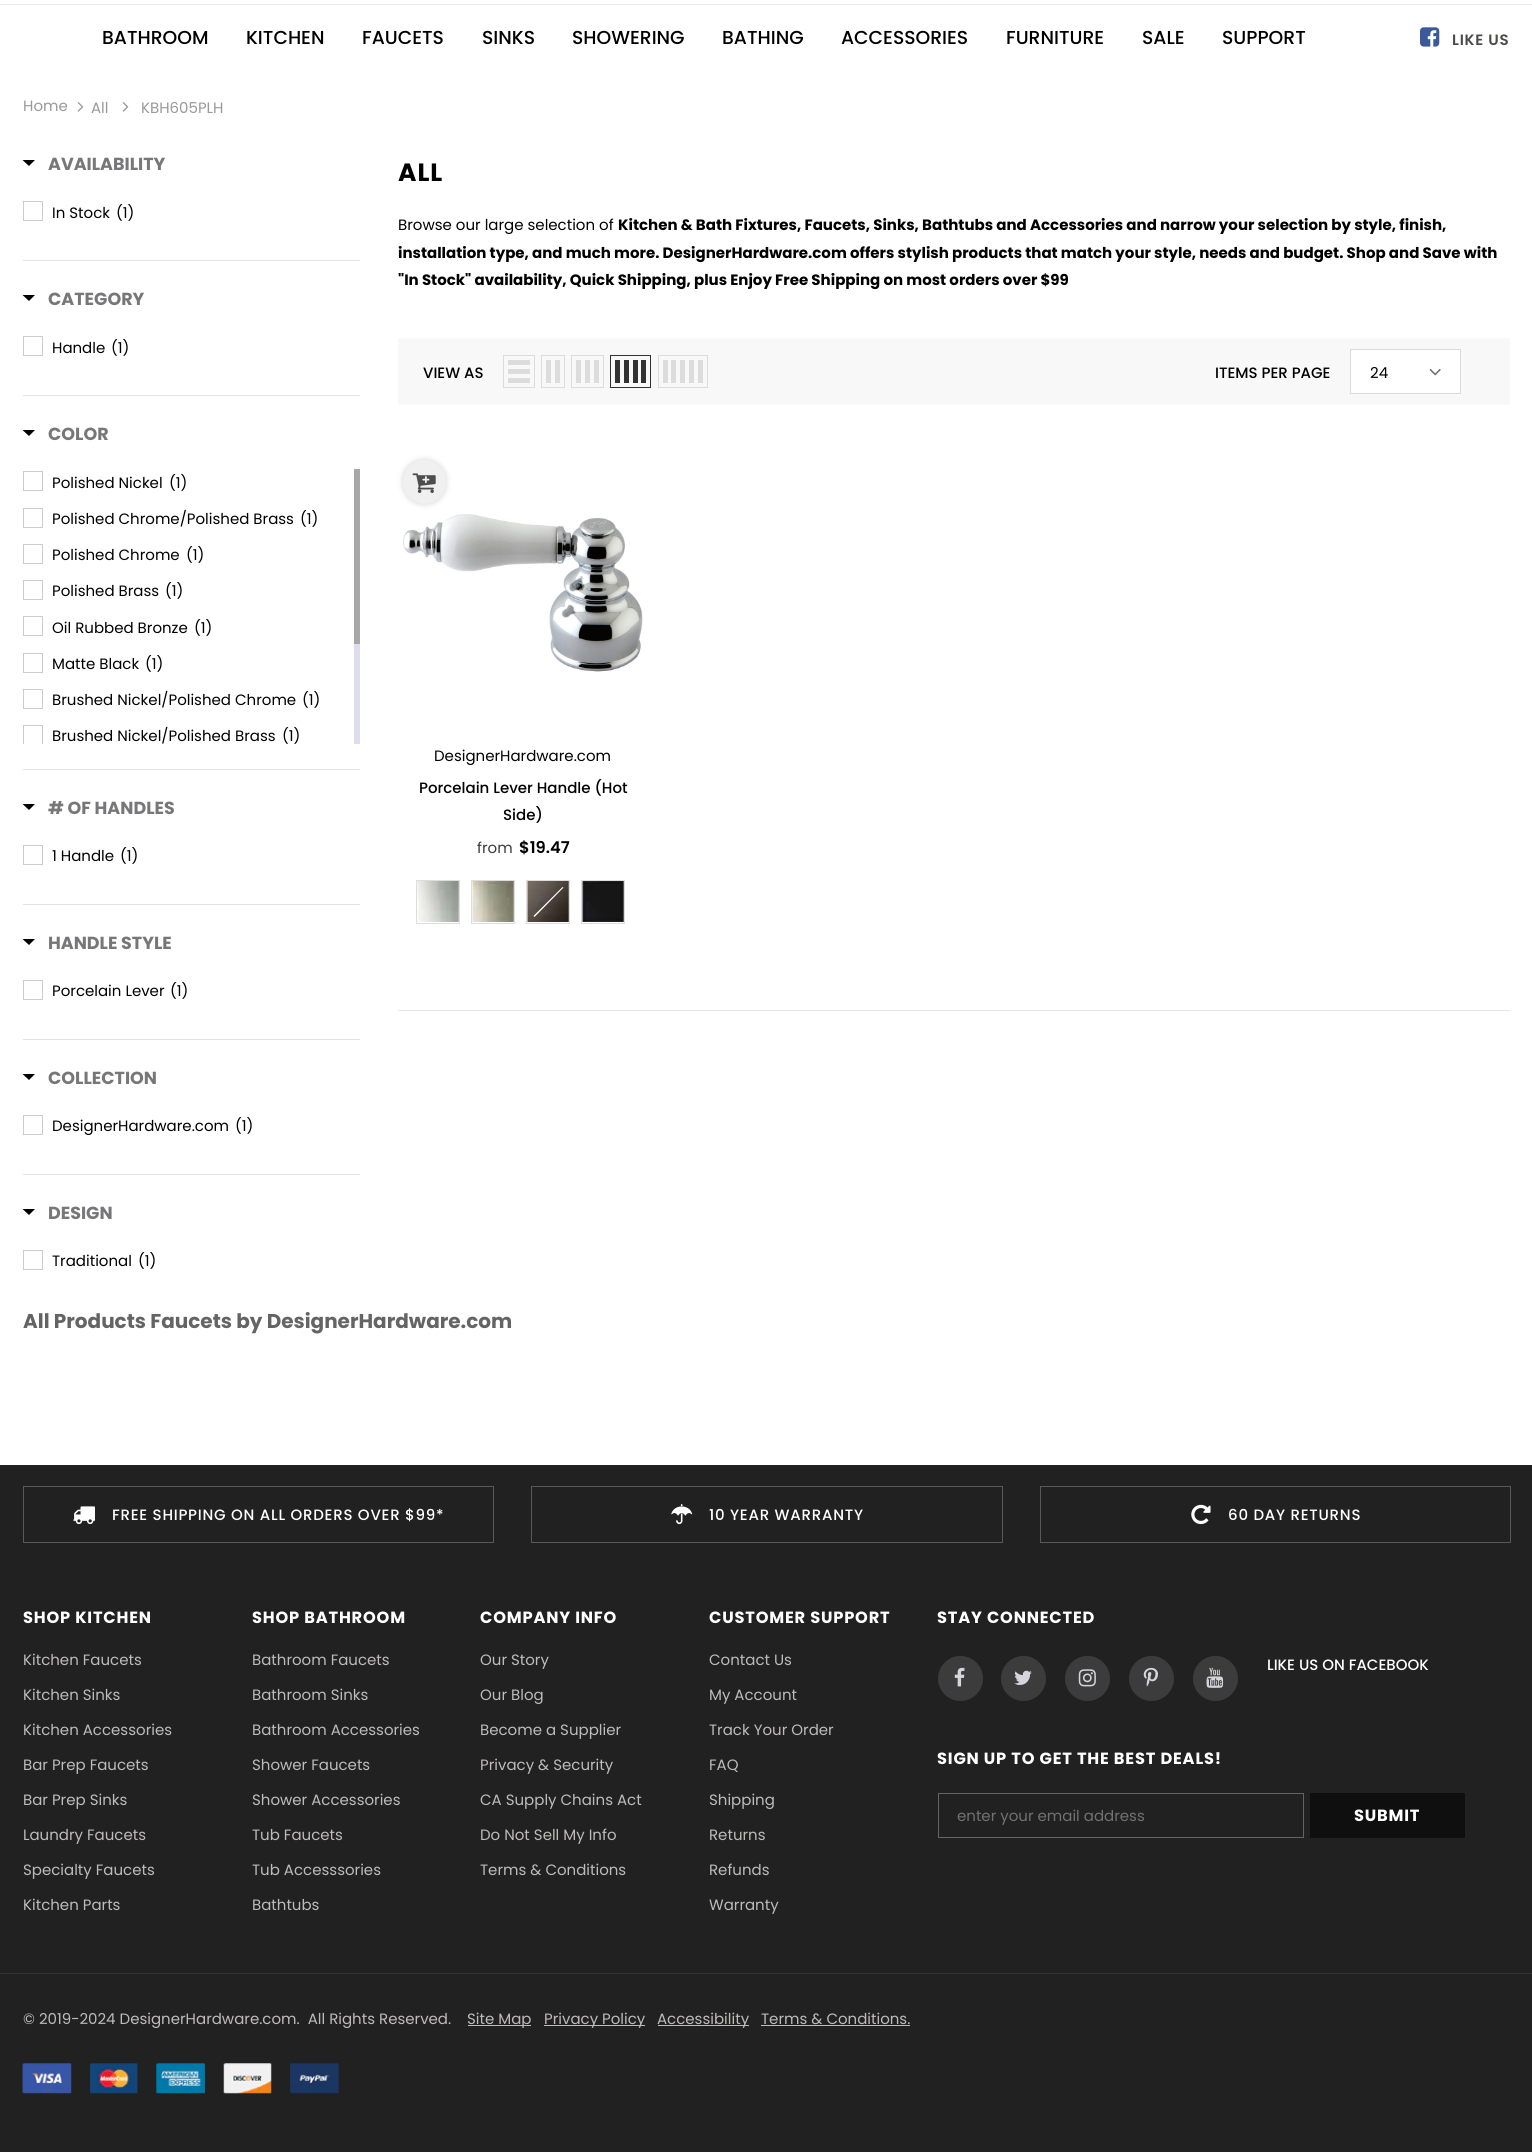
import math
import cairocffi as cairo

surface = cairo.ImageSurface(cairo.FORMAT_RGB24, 1532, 2152)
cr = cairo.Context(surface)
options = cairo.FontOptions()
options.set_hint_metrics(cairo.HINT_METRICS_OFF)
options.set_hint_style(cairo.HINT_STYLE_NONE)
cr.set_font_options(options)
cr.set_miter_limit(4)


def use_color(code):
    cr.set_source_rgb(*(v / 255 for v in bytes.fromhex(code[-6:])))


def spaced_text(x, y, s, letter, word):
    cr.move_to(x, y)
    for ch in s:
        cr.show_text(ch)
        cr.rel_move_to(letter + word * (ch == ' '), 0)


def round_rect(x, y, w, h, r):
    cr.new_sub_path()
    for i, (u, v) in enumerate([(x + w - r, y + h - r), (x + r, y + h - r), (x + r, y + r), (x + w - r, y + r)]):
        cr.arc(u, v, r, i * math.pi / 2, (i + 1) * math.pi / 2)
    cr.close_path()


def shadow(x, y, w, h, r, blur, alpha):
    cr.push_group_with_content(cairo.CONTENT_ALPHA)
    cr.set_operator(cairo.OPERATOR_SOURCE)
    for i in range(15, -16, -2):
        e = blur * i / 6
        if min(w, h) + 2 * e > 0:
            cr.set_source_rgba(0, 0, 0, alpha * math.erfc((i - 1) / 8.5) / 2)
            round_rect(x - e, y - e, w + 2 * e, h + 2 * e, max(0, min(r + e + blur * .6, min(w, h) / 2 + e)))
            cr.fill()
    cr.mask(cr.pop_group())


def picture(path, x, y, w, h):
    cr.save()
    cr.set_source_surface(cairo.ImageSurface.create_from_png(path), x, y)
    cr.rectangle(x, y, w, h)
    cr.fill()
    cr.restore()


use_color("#ffffff")
cr.paint()
use_color("#ebebeb")
cr.rectangle(0, 4, 1532, 1)
cr.fill()
cr.select_font_face("Poppins Medium")
cr.set_font_size(18.75)
use_color("#000000")
cr.move_to(102, 44)
cr.show_text("BATHROOM")
cr.move_to(246, 44)
cr.show_text("KITCHEN")
cr.move_to(362, 44)
cr.show_text("FAUCETS")
cr.move_to(482, 44)
cr.show_text("SINKS")
cr.move_to(572, 44)
cr.show_text("SHOWERING")
cr.move_to(722, 44)
cr.show_text("BATHING")
cr.move_to(841, 44)
cr.show_text("ACCESSORIES")
cr.move_to(1006, 44)
cr.show_text("FURNITURE")
cr.move_to(1142, 44)
cr.show_text("SALE")
cr.move_to(1222, 44)
cr.show_text("SUPPORT")
picture("img1.png", 1420, 27, 20, 20)
cr.select_font_face("Poppins SemiBold")
cr.set_font_size(15)
use_color("#4a4a49")
spaced_text(1452, 45, "LIKE US", 0.75, 0)
cr.select_font_face("Poppins")
use_color("#999999")
cr.move_to(23, 111)
cr.show_text("Home")
picture("img2.png", 77, 102, 7, 10)
cr.move_to(91, 113)
cr.show_text("All")
picture("img2.png", 122, 102, 7, 10)
cr.move_to(141, 113)
cr.show_text("KBH605PLH")
use_color("#e3e3e3")
cr.rectangle(23, 260, 337, 1)
cr.fill()
use_color("#000000")
cr.new_path()
cr.move_to(22.5, 160)
cr.line_to(35, 160)
cr.line_to(29, 166)
cr.close_path()
cr.fill()
cr.select_font_face("Poppins", cairo.FONT_SLANT_NORMAL, cairo.FONT_WEIGHT_BOLD)
cr.set_font_size(17.5)
use_color("#777779")
cr.move_to(48, 170)
cr.show_text("AVAILABILITY")
cr.rectangle(23.5, 201.5, 19, 19)
use_color("#cccccc")
cr.set_line_width(1)
cr.stroke()
cr.select_font_face("Poppins")
cr.set_font_size(15)
use_color("#000000")
cr.move_to(52, 218)
cr.show_text("In Stock")
cr.move_to(116, 218)
cr.show_text("(1)")
use_color("#e3e3e3")
cr.rectangle(23, 395, 337, 1)
cr.fill()
use_color("#000000")
cr.new_path()
cr.move_to(22.5, 295)
cr.line_to(35, 295)
cr.line_to(29, 301)
cr.close_path()
cr.fill()
cr.select_font_face("Poppins", cairo.FONT_SLANT_NORMAL, cairo.FONT_WEIGHT_BOLD)
cr.set_font_size(17.5)
use_color("#777779")
cr.move_to(48, 305)
cr.show_text("CATEGORY")
cr.rectangle(23.5, 336.5, 19, 19)
use_color("#cccccc")
cr.stroke()
cr.select_font_face("Poppins")
cr.set_font_size(15)
use_color("#000000")
cr.move_to(52, 353)
cr.show_text("Handle")
cr.move_to(111, 353)
cr.show_text("(1)")
use_color("#e3e3e3")
cr.rectangle(23, 769, 337, 1)
cr.fill()
use_color("#000000")
cr.new_path()
cr.move_to(22.5, 430)
cr.line_to(35, 430)
cr.line_to(29, 436)
cr.close_path()
cr.fill()
cr.select_font_face("Poppins", cairo.FONT_SLANT_NORMAL, cairo.FONT_WEIGHT_BOLD)
cr.set_font_size(17.5)
use_color("#777779")
cr.move_to(48, 440)
cr.show_text("COLOR")
cr.rectangle(23.5, 471.5, 19, 19)
use_color("#cccccc")
cr.stroke()
cr.select_font_face("Poppins")
cr.set_font_size(15)
use_color("#000000")
cr.move_to(52, 488)
cr.show_text("Polished Nickel")
cr.move_to(169, 488)
cr.show_text("(1)")
cr.rectangle(23.5, 508.5, 19, 19)
use_color("#cccccc")
cr.stroke()
use_color("#000000")
cr.move_to(52, 524)
cr.show_text("Polished Chrome/Polished Brass")
cr.move_to(300, 524)
cr.show_text("(1)")
cr.rectangle(23.5, 544.5, 19, 19)
use_color("#cccccc")
cr.stroke()
use_color("#000000")
cr.move_to(52, 560)
cr.show_text("Polished Chrome")
cr.move_to(186, 560)
cr.show_text("(1)")
cr.rectangle(23.5, 580.5, 19, 19)
use_color("#cccccc")
cr.stroke()
use_color("#000000")
cr.move_to(52, 596)
cr.show_text("Polished Brass")
cr.move_to(165, 596)
cr.show_text("(1)")
cr.rectangle(23.5, 616.5, 19, 19)
use_color("#cccccc")
cr.stroke()
use_color("#000000")
cr.move_to(52, 633)
cr.show_text("Oil Rubbed Bronze")
cr.move_to(194, 633)
cr.show_text("(1)")
cr.rectangle(23.5, 653.5, 19, 19)
use_color("#cccccc")
cr.stroke()
use_color("#000000")
cr.move_to(52, 669)
cr.show_text("Matte Black")
cr.move_to(145, 669)
cr.show_text("(1)")
cr.rectangle(23.5, 689.5, 19, 19)
use_color("#cccccc")
cr.stroke()
use_color("#000000")
cr.move_to(52, 705)
cr.show_text("Brushed Nickel/Polished Chrome")
cr.move_to(302, 705)
cr.show_text("(1)")
cr.save()
cr.rectangle(23, 469, 337, 275)
cr.clip()
cr.rectangle(23.5, 725.5, 19, 19)
use_color("#cccccc")
cr.stroke()
cr.restore()
cr.move_to(52, 741)
cr.show_text("Brushed Nickel/Polished Brass")
cr.move_to(282, 741)
cr.show_text("(1)")
use_color("#ddddee")
cr.rectangle(354, 644, 6, 100)
cr.fill()
use_color("#a7a7a7")
cr.rectangle(354, 469, 6, 175)
cr.fill()
use_color("#e3e3e3")
cr.rectangle(23, 904, 337, 1)
cr.fill()
use_color("#000000")
cr.new_path()
cr.move_to(22.5, 804)
cr.line_to(35, 804)
cr.line_to(29, 810)
cr.close_path()
cr.fill()
cr.select_font_face("Poppins", cairo.FONT_SLANT_NORMAL, cairo.FONT_WEIGHT_BOLD)
cr.set_font_size(17.5)
use_color("#777779")
cr.move_to(48, 814)
cr.show_text("# OF HANDLES")
cr.rectangle(23.5, 845.5, 19, 19)
use_color("#cccccc")
cr.stroke()
cr.select_font_face("Poppins")
cr.set_font_size(15)
use_color("#000000")
cr.move_to(52, 861)
cr.show_text("1 Handle")
cr.move_to(120, 861)
cr.show_text("(1)")
use_color("#e3e3e3")
cr.rectangle(23, 1039, 337, 1)
cr.fill()
use_color("#000000")
cr.new_path()
cr.move_to(22.5, 939)
cr.line_to(35, 939)
cr.line_to(29, 945)
cr.close_path()
cr.fill()
cr.select_font_face("Poppins", cairo.FONT_SLANT_NORMAL, cairo.FONT_WEIGHT_BOLD)
cr.set_font_size(17.5)
use_color("#777779")
cr.move_to(48, 949)
cr.show_text("HANDLE STYLE")
cr.rectangle(23.5, 980.5, 19, 19)
use_color("#cccccc")
cr.stroke()
cr.select_font_face("Poppins")
cr.set_font_size(15)
use_color("#000000")
cr.move_to(52, 996)
cr.show_text("Porcelain Lever")
cr.move_to(170, 996)
cr.show_text("(1)")
use_color("#e3e3e3")
cr.rectangle(23, 1174, 337, 1)
cr.fill()
use_color("#000000")
cr.new_path()
cr.move_to(22.5, 1074)
cr.line_to(35, 1074)
cr.line_to(29, 1080)
cr.close_path()
cr.fill()
cr.select_font_face("Poppins", cairo.FONT_SLANT_NORMAL, cairo.FONT_WEIGHT_BOLD)
cr.set_font_size(17.5)
use_color("#777779")
cr.move_to(48, 1084)
cr.show_text("COLLECTION")
cr.rectangle(23.5, 1115.5, 19, 19)
use_color("#cccccc")
cr.stroke()
cr.select_font_face("Poppins")
cr.set_font_size(15)
use_color("#000000")
cr.move_to(52, 1131)
cr.show_text("DesignerHardware.com")
cr.move_to(235, 1131)
cr.show_text("(1)")
cr.new_path()
cr.move_to(22.5, 1209)
cr.line_to(35, 1209)
cr.line_to(29, 1215)
cr.close_path()
cr.fill()
cr.select_font_face("Poppins", cairo.FONT_SLANT_NORMAL, cairo.FONT_WEIGHT_BOLD)
cr.set_font_size(17.5)
use_color("#777779")
cr.move_to(48, 1219)
cr.show_text("DESIGN")
cr.rectangle(23.5, 1250.5, 19, 19)
use_color("#cccccc")
cr.stroke()
cr.select_font_face("Poppins")
cr.set_font_size(15)
use_color("#000000")
cr.move_to(52, 1266)
cr.show_text("Traditional")
cr.move_to(138, 1266)
cr.show_text("(1)")
cr.select_font_face("Poppins", cairo.FONT_SLANT_NORMAL, cairo.FONT_WEIGHT_BOLD)
cr.set_font_size(25)
spaced_text(398, 181, "ALL", 1, 0)
cr.select_font_face("Poppins")
cr.set_font_size(15)
cr.move_to(398, 230)
cr.show_text("Browse our large selection of")
cr.select_font_face("Poppins", cairo.FONT_SLANT_NORMAL, cairo.FONT_WEIGHT_BOLD)
cr.move_to(618, 230)
cr.show_text("Kitchen & Bath Fixtures, Faucets, Sinks, Bathtubs and Accessories and narrow your selection by style, finish,")
cr.move_to(398, 258)
cr.show_text("installation type, and much more. DesignerHardware.com offers stylish products that match your style, needs and budget. Shop and Save with")
cr.move_to(398, 285)
cr.show_text("\"In Stock\" availability, Quick Shipping, plus Enjoy Free Shipping on most orders over $99")
use_color("#f8f8f8")
cr.rectangle(398, 338, 1112, 67)
cr.fill()
cr.select_font_face("Poppins Medium")
use_color("#000000")
cr.move_to(423, 378)
cr.show_text("VIEW AS")
cr.rectangle(503.5, 355.5, 31, 32)
use_color("#dcdcdc")
cr.stroke()
cr.rectangle(508, 378, 22, 5)
cr.fill()
cr.rectangle(508, 369, 22, 5)
cr.fill()
cr.rectangle(508, 360, 22, 5)
cr.fill()
cr.rectangle(541.5, 355.5, 23, 32)
cr.stroke()
cr.rectangle(555, 360, 5, 23)
cr.fill()
cr.rectangle(546, 360, 5, 23)
cr.fill()
cr.rectangle(571.5, 355.5, 32, 32)
cr.stroke()
cr.rectangle(594, 360, 5, 23)
cr.fill()
cr.rectangle(585, 360, 5, 23)
cr.fill()
cr.rectangle(576, 360, 5, 23)
cr.fill()
cr.rectangle(610.5, 355.5, 40, 32)
use_color("#323232")
cr.stroke()
cr.rectangle(641, 360, 5, 23)
cr.fill()
cr.rectangle(633, 360, 5, 23)
cr.fill()
cr.rectangle(624, 360, 5, 23)
cr.fill()
cr.rectangle(615, 360, 5, 23)
cr.fill()
cr.rectangle(658.5, 355.5, 49, 32)
use_color("#dcdcdc")
cr.stroke()
cr.rectangle(698, 360, 5, 23)
cr.fill()
cr.rectangle(689, 360, 5, 23)
cr.fill()
cr.rectangle(680, 360, 5, 23)
cr.fill()
cr.rectangle(671, 360, 5, 23)
cr.fill()
cr.rectangle(663, 360, 5, 23)
cr.fill()
use_color("#000000")
cr.move_to(1215, 378)
cr.show_text("ITEMS PER PAGE")
use_color("#ffffff")
cr.rectangle(1350.5, 349.5, 110, 44)
cr.fill_preserve()
use_color("#dadada")
cr.stroke()
cr.select_font_face("Poppins")
use_color("#000000")
cr.move_to(1370, 378)
cr.show_text("24")
picture("img3.png", 1429, 369, 12, 7)
use_color("#1a1a1a")
shadow(403, 460, 43, 44, 21.5, 3, 0.2)
use_color("#f0f0f0")
round_rect(403, 460, 43, 44, 21.5)
cr.fill()
picture("img4.png", 412, 473, 24, 20)
picture("img5.png", 403, 514, 240, 158)
use_color("#000000")
cr.move_to(434, 761)
cr.show_text("DesignerHardware.com")
cr.select_font_face("Poppins Medium")
cr.move_to(419, 793)
cr.show_text("Porcelain Lever Handle (Hot")
cr.move_to(503, 820)
cr.show_text("Side)")
cr.select_font_face("Poppins")
use_color("#3c3c3c")
cr.move_to(477, 853)
cr.show_text("from")
cr.select_font_face("Poppins SemiBold")
cr.set_font_size(16.25)
use_color("#000000")
cr.move_to(519, 853)
cr.show_text("$19.47")
picture("img6.png", 417, 881, 42, 41)
cr.rectangle(416.5, 880.5, 43, 43)
use_color("#dddddd")
cr.stroke()
picture("img7.png", 472, 881, 42, 41)
cr.rectangle(471.5, 880.5, 43, 43)
cr.stroke()
picture("img8.png", 527, 881, 42, 41)
cr.rectangle(526.5, 880.5, 43, 43)
cr.stroke()
use_color("#ffffff")
cr.new_path()
cr.move_to(562.5, 887)
cr.line_to(563.5, 887.5)
cr.line_to(534.5, 917)
cr.line_to(533.5, 916)
cr.close_path()
cr.fill()
picture("img9.png", 582, 881, 42, 41)
cr.rectangle(581.5, 880.5, 43, 43)
use_color("#dddddd")
cr.stroke()
use_color("#e6e6e6")
cr.rectangle(398, 1010, 1112, 1)
cr.fill()
cr.select_font_face("Poppins", cairo.FONT_SLANT_NORMAL, cairo.FONT_WEIGHT_BOLD)
cr.set_font_size(20)
use_color("#646464")
cr.move_to(23, 1328)
cr.show_text("All Products Faucets by DesignerHardware.com")
use_color("#212121")
cr.rectangle(0, 1465, 1532, 687)
cr.fill()
cr.rectangle(23.5, 1486.5, 470, 56)
use_color("#595959")
cr.stroke()
picture("img10.png", 73, 1506, 22, 19)
cr.select_font_face("Poppins Medium")
cr.set_font_size(15)
use_color("#ffffff")
spaced_text(112, 1520, "FREE SHIPPING ON ALL ORDERS OVER $99*", 0.75, 0)
cr.rectangle(531.5, 1486.5, 471, 56)
use_color("#595959")
cr.stroke()
picture("img11.png", 671, 1504, 22, 21)
use_color("#ffffff")
spaced_text(709, 1520, "10 YEAR WARRANTY", 0.75, 0)
cr.rectangle(1040.5, 1486.5, 470, 56)
use_color("#595959")
cr.stroke()
picture("img12.png", 1191, 1504, 20, 21)
use_color("#ffffff")
spaced_text(1228, 1520, "60 DAY RETURNS", 0.75, 0)
cr.select_font_face("Poppins", cairo.FONT_SLANT_NORMAL, cairo.FONT_WEIGHT_BOLD)
cr.set_font_size(16.25)
spaced_text(23, 1623, "SHOP KITCHEN", 0.8, 0)
cr.select_font_face("Poppins")
cr.set_font_size(15)
use_color("#bebbbb")
cr.move_to(23, 1665)
cr.show_text("Kitchen Faucets")
cr.move_to(23, 1700)
cr.show_text("Kitchen Sinks")
cr.move_to(23, 1735)
cr.show_text("Kitchen Accessories")
cr.move_to(23, 1770)
cr.show_text("Bar Prep Faucets")
cr.move_to(23, 1805)
cr.show_text("Bar Prep Sinks")
cr.move_to(23, 1840)
cr.show_text("Laundry Faucets")
cr.move_to(23, 1875)
cr.show_text("Specialty Faucets")
cr.move_to(23, 1910)
cr.show_text("Kitchen Parts")
cr.select_font_face("Poppins", cairo.FONT_SLANT_NORMAL, cairo.FONT_WEIGHT_BOLD)
cr.set_font_size(16.25)
use_color("#ffffff")
spaced_text(252, 1623, "SHOP BATHROOM", 0.8, 0)
cr.select_font_face("Poppins")
cr.set_font_size(15)
use_color("#bebbbb")
cr.move_to(252, 1665)
cr.show_text("Bathroom Faucets")
cr.move_to(252, 1700)
cr.show_text("Bathroom Sinks")
cr.move_to(252, 1735)
cr.show_text("Bathroom Accessories")
cr.move_to(252, 1770)
cr.show_text("Shower Faucets")
cr.move_to(252, 1805)
cr.show_text("Shower Accessories")
cr.move_to(252, 1840)
cr.show_text("Tub Faucets")
cr.move_to(252, 1875)
cr.show_text("Tub Accesssories")
cr.move_to(252, 1910)
cr.show_text("Bathtubs")
cr.select_font_face("Poppins", cairo.FONT_SLANT_NORMAL, cairo.FONT_WEIGHT_BOLD)
cr.set_font_size(16.25)
use_color("#ffffff")
spaced_text(480, 1623, "COMPANY INFO", 0.8, 0)
cr.select_font_face("Poppins")
cr.set_font_size(15)
use_color("#bebbbb")
cr.move_to(480, 1665)
cr.show_text("Our Story")
cr.move_to(480, 1700)
cr.show_text("Our Blog")
cr.move_to(480, 1735)
cr.show_text("Become a Supplier")
cr.move_to(480, 1770)
cr.show_text("Privacy & Security")
cr.move_to(480, 1805)
cr.show_text("CA Supply Chains Act")
cr.move_to(480, 1840)
cr.show_text("Do Not Sell My Info")
cr.move_to(480, 1875)
cr.show_text("Terms & Conditions")
cr.select_font_face("Poppins", cairo.FONT_SLANT_NORMAL, cairo.FONT_WEIGHT_BOLD)
cr.set_font_size(16.25)
use_color("#ffffff")
spaced_text(709, 1623, "CUSTOMER SUPPORT", 0.8, 0)
cr.select_font_face("Poppins")
cr.set_font_size(15)
use_color("#bebbbb")
cr.move_to(709, 1665)
cr.show_text("Contact Us")
cr.move_to(709, 1700)
cr.show_text("My Account")
cr.move_to(709, 1735)
cr.show_text("Track Your Order")
cr.move_to(709, 1770)
cr.show_text("FAQ")
cr.move_to(709, 1805)
cr.show_text("Shipping")
cr.move_to(709, 1840)
cr.show_text("Returns")
cr.move_to(709, 1875)
cr.show_text("Refunds")
cr.move_to(709, 1910)
cr.show_text("Warranty")
cr.select_font_face("Poppins", cairo.FONT_SLANT_NORMAL, cairo.FONT_WEIGHT_BOLD)
cr.set_font_size(16.25)
use_color("#ffffff")
spaced_text(937, 1623, "STAY CONNECTED", 0.8, 0)
use_color("#3c3c3c")
cr.new_path()
cr.arc(960.5, 1678.5, 22.5, 0, 2 * math.pi)
cr.fill()
picture("img13.png", 954, 1667, 11, 20)
cr.arc(1023.5, 1678.5, 22.5, 0, 2 * math.pi)
cr.fill()
picture("img14.png", 1014, 1670, 18, 15)
cr.arc(1087.5, 1678.5, 22.5, 0, 2 * math.pi)
cr.fill()
picture("img15.png", 1078, 1669, 18, 18)
cr.arc(1151.5, 1678.5, 22.5, 0, 2 * math.pi)
cr.fill()
picture("img16.png", 1143, 1667, 15, 20)
cr.arc(1215.5, 1678.5, 22.5, 0, 2 * math.pi)
cr.fill()
picture("img17.png", 1206, 1667, 18, 21)
cr.select_font_face("Poppins Medium")
cr.set_font_size(15)
use_color("#ffffff")
cr.move_to(1267, 1670)
cr.show_text("LIKE US ON FACEBOOK")
cr.select_font_face("Poppins", cairo.FONT_SLANT_NORMAL, cairo.FONT_WEIGHT_BOLD)
cr.set_font_size(16.25)
spaced_text(937, 1764, "SIGN UP TO GET THE BEST DEALS!", 0.8, 0)
cr.rectangle(938.5, 1793.5, 365, 44)
use_color("#646464")
cr.stroke()
cr.select_font_face("Poppins")
cr.set_font_size(15)
use_color("#717171")
cr.move_to(957, 1821)
cr.show_text("enter your email address")
use_color("#100f0f")
cr.rectangle(1310, 1793, 155, 45)
cr.fill()
cr.select_font_face("Poppins", cairo.FONT_SLANT_NORMAL, cairo.FONT_WEIGHT_BOLD)
cr.set_font_size(16.25)
use_color("#ffffff")
spaced_text(1354, 1821, "SUBMIT", 0.8, 0)
use_color("#333333")
cr.rectangle(0, 1973, 1532, 1)
cr.fill()
cr.select_font_face("Poppins")
cr.set_font_size(15)
use_color("#bebbbb")
cr.move_to(23, 2024)
cr.show_text("© 2019-2024 DesignerHardware.com.  All Rights Reserved.")
cr.rectangle(468, 2025, 63, 1)
cr.fill()
cr.move_to(467, 2024)
cr.show_text("Site Map")
cr.rectangle(544, 2025, 101, 1)
cr.fill()
cr.move_to(544, 2024)
cr.show_text("Privacy Policy")
cr.rectangle(658, 2025, 91, 1)
cr.fill()
cr.move_to(657, 2024)
cr.show_text("Accessibility")
cr.move_to(761, 2024)
cr.show_text("Terms & Conditions.")
cr.rectangle(761, 2025, 149, 1)
cr.fill()
picture("img18.png", 22, 2063, 50, 31)
picture("img19.png", 90, 2063, 48, 31)
picture("img20.png", 156, 2063, 49, 31)
picture("img21.png", 223, 2063, 49, 31)
picture("img22.png", 290, 2063, 49, 31)
surface.write_to_png("result.png")
